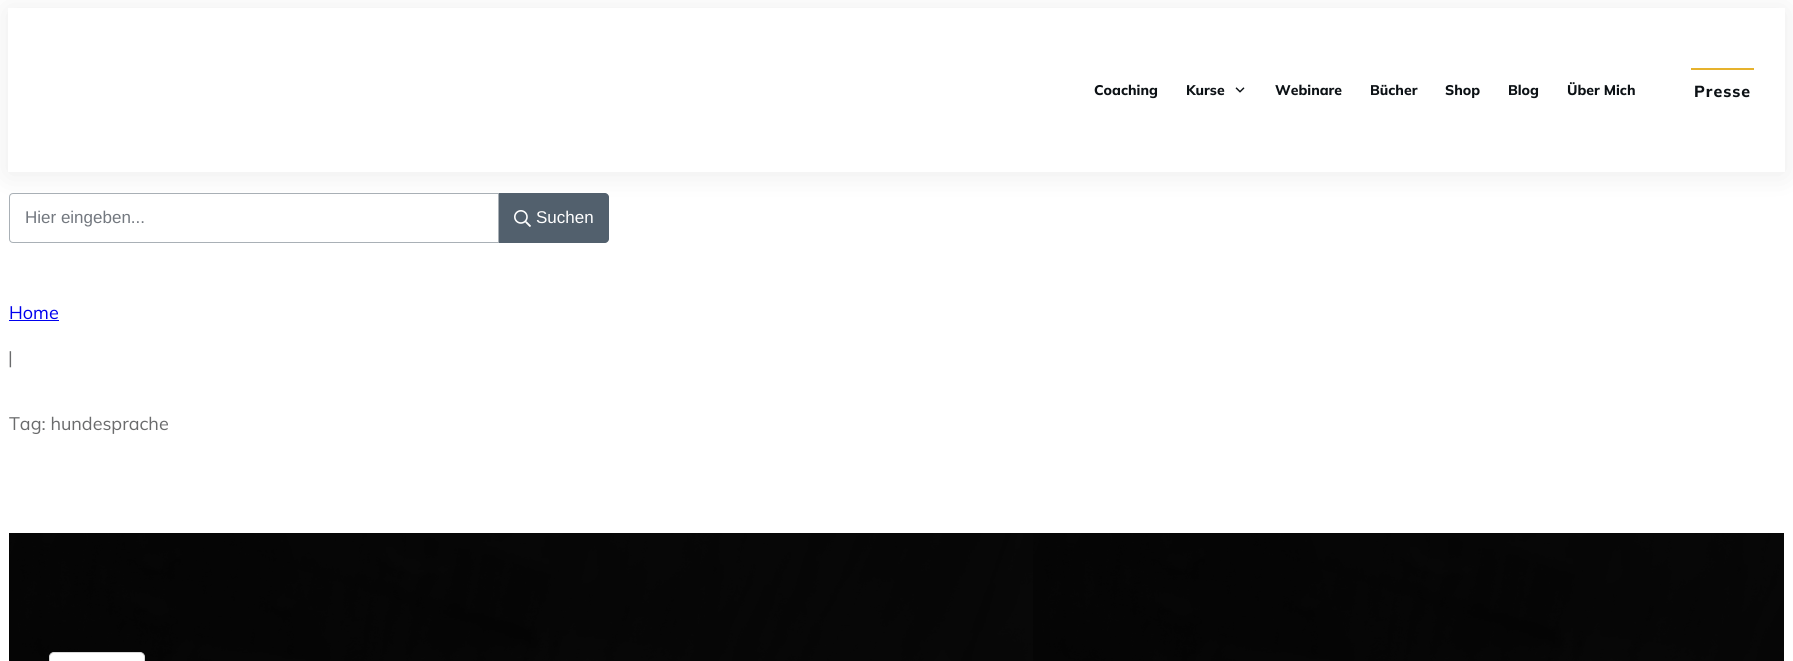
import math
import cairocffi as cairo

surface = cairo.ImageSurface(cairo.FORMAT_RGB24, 1793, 661)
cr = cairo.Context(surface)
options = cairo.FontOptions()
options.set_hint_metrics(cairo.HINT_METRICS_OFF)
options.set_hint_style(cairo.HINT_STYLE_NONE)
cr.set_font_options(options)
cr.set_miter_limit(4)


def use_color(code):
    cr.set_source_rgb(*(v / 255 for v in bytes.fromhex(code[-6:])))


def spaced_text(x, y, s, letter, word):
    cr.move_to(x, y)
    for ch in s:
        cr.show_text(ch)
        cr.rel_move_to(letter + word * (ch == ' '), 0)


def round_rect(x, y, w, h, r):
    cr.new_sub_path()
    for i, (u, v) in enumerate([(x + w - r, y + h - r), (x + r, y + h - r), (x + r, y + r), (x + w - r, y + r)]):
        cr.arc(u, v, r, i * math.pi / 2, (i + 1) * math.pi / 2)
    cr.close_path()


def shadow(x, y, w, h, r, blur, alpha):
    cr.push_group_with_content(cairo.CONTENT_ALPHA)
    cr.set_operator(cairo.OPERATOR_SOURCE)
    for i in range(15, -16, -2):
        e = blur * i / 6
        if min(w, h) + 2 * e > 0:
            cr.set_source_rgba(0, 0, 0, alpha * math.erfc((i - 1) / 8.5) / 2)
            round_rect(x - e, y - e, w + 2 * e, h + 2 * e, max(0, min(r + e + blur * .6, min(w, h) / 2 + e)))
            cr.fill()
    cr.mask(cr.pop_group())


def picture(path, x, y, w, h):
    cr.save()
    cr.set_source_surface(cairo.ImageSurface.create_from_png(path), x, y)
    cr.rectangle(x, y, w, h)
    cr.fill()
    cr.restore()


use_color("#ffffff")
cr.paint()
cr.new_path()
cr.move_to(13, 193.5)
cr.line_to(498.5, 193.5)
cr.line_to(498.5, 242.5)
cr.line_to(13, 242.5)
cr.curve_to(11, 242.5, 9.5, 241, 9.5, 239)
cr.line_to(9.5, 197)
cr.curve_to(9.5, 195, 11, 193.5, 13, 193.5)
cr.close_path()
use_color("#a9b0b6")
cr.set_line_width(1)
cr.stroke()
use_color("#52606d")
cr.new_path()
cr.move_to(499, 193)
cr.line_to(605, 193)
cr.curve_to(607, 193, 609, 195, 609, 197)
cr.line_to(609, 239)
cr.curve_to(609, 241, 607, 243, 605, 243)
cr.line_to(499, 243)
cr.close_path()
cr.fill()
picture("img2.png", 514, 210, 17, 17)
cr.save()
cr.set_fill_rule(cairo.FILL_RULE_EVEN_ODD)
cr.new_path()
cr.move_to(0, 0)
cr.line_to(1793, 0)
cr.line_to(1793, 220)
cr.line_to(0, 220)
cr.close_path()
cr.move_to(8, 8)
cr.line_to(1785, 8)
cr.line_to(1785, 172)
cr.line_to(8, 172)
cr.close_path()
cr.clip()
use_color("#000000")
shadow(8, 10, 1777, 164, 0, 15, 0.08)
cr.restore()
cr.select_font_face("Mulish ExtraBold")
cr.set_font_size(14)
use_color("#0c1115")
cr.move_to(1094, 95)
cr.show_text("Coaching")
cr.move_to(1186, 95)
cr.show_text("Kurse")
picture("img1.png", 1235, 87, 10, 6)
cr.move_to(1275, 95)
cr.show_text("Webinare")
cr.move_to(1370, 95)
cr.show_text("Bücher")
cr.move_to(1445, 95)
cr.show_text("Shop")
cr.move_to(1508, 95)
cr.show_text("Blog")
cr.move_to(1567, 95)
cr.show_text("Über Mich")
use_color("#e6b22d")
cr.rectangle(1691, 68, 63, 2)
cr.fill()
cr.set_font_size(16)
use_color("#0c1115")
spaced_text(1694, 97, "Presse", 1, 0)
cr.select_font_face("Liberation Sans")
cr.set_font_size(17)
use_color("#73787f")
cr.move_to(25, 223)
cr.show_text("Hier eingeben...")
use_color("#ffffff")
cr.move_to(536, 223)
cr.show_text("Suchen")
cr.select_font_face("Muli")
cr.set_font_size(18)
use_color("#0000ee")
cr.move_to(9, 319)
cr.show_text("Home")
cr.rectangle(9, 320, 50, 1)
cr.fill()
use_color("#6a6b6c")
cr.move_to(8, 364)
cr.show_text("|")
cr.move_to(9, 430)
cr.show_text("Tag: hundesprache")
picture("img3.png", 9, 533, 1775, 128)
use_color("#ffffff")
round_rect(49.5, 652.5, 95, 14, 4.5)
cr.fill_preserve()
use_color("#d7d7d7")
cr.stroke()
surface.write_to_png("result.png")
